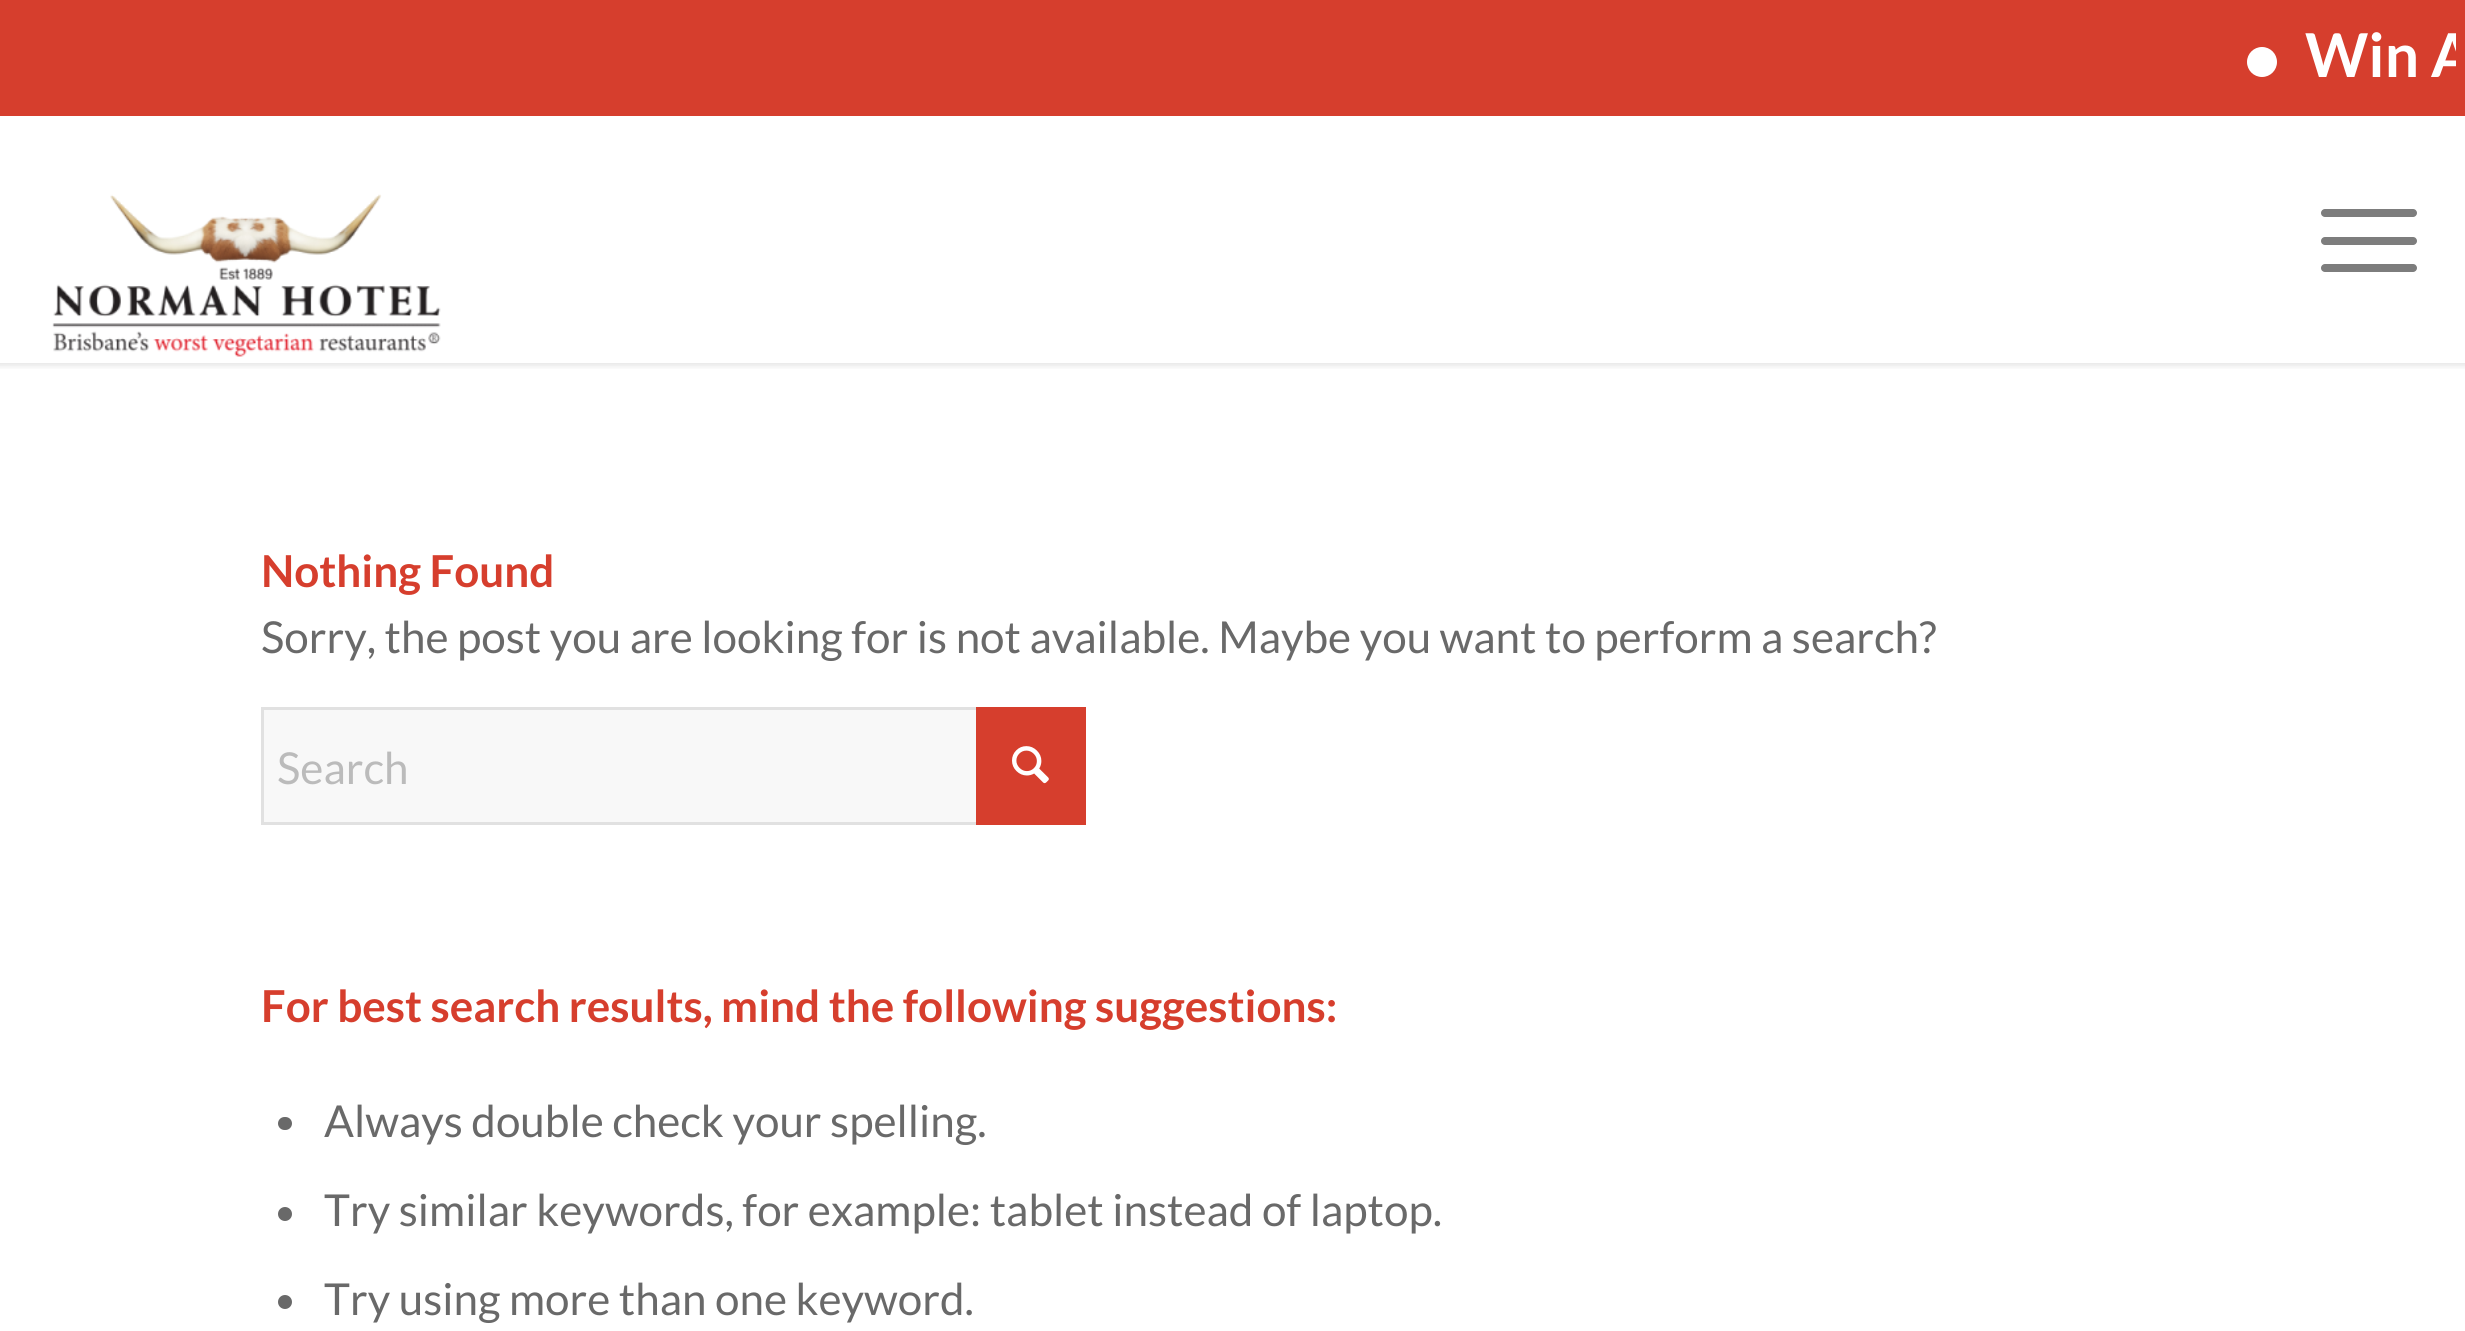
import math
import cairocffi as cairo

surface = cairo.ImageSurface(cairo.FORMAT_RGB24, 2465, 1331)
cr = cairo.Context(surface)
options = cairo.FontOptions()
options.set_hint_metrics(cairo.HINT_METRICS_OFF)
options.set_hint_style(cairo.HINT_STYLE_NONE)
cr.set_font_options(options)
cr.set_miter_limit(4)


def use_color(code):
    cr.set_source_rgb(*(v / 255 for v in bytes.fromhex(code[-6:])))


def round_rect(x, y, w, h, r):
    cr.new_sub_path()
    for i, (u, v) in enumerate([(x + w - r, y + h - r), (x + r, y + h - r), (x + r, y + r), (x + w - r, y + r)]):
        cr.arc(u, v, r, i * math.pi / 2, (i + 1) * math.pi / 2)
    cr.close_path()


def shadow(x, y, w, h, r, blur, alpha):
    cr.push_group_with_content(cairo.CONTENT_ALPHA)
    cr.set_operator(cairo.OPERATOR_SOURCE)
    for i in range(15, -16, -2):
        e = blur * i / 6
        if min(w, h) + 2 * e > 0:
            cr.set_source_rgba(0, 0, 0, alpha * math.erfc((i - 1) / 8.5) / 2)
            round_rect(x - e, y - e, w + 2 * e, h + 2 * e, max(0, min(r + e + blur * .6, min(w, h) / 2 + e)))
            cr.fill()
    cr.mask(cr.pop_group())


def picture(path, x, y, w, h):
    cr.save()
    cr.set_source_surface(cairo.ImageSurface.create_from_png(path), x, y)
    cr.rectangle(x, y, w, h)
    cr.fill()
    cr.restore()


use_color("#d63e2d")
cr.paint()
use_color("#ffffff")
cr.arc(2262, 62, 15, 0, 2 * math.pi)
cr.fill()
cr.save()
cr.rectangle(11, 19, 2445, 77)
cr.clip()
cr.select_font_face("Lato", cairo.FONT_SLANT_NORMAL, cairo.FONT_WEIGHT_BOLD)
cr.set_font_size(60.5)
cr.move_to(2305, 77)
cr.show_text("Win A")
cr.restore()
cr.rectangle(0, 116, 2465, 1215)
cr.fill()
cr.save()
cr.rectangle(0, 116, 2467, 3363)
cr.clip()
cr.rectangle(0, 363, 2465, 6)
cr.clip()
use_color("#000000")
shadow(-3, 113, 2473, 253, 0, 3, 0.1)
cr.restore()
picture("img1.png", 52, 194, 389, 163)
use_color("#7d7d7d")
round_rect(2321, 237, 96, 8, 4)
cr.fill()
round_rect(2321, 209, 96, 8, 4)
cr.fill()
round_rect(2321, 264, 96, 8, 4)
cr.fill()
cr.select_font_face("Lato", cairo.FONT_SLANT_NORMAL, cairo.FONT_WEIGHT_BOLD)
cr.set_font_size(44)
use_color("#d63e2d")
cr.move_to(261, 587)
cr.show_text("Nothing Found")
cr.select_font_face("Lato")
use_color("#696969")
cr.move_to(261, 653)
cr.show_text("Sorry, the post you are looking for is not available. Maybe you want to perform a search?")
use_color("#f8f8f8")
cr.rectangle(264, 710, 712, 112)
cr.fill()
cr.rectangle(262.5, 708.5, 822, 115)
use_color("#e1e1e1")
cr.set_line_width(3)
cr.stroke()
use_color("#bbbbbb")
cr.move_to(277, 784)
cr.show_text("Search")
use_color("#d63e2d")
cr.rectangle(976, 707, 110, 118)
cr.fill()
picture("img2.png", 1012, 746, 37, 38)
cr.select_font_face("Lato", cairo.FONT_SLANT_NORMAL, cairo.FONT_WEIGHT_BOLD)
cr.move_to(261, 1022)
cr.show_text("For best search results, mind the following suggestions:")
use_color("#696969")
round_rect(278, 1117, 14, 13, 6.5)
cr.fill()
cr.select_font_face("Lato")
cr.move_to(324, 1137)
cr.show_text("Always double check your spelling.")
cr.new_path()
cr.arc(285, 1214, 7, 0, 2 * math.pi)
cr.fill()
cr.move_to(324, 1226)
cr.show_text("Try similar keywords, for example: tablet instead of laptop.")
cr.new_path()
cr.arc(285, 1302, 7, 0, 2 * math.pi)
cr.fill()
cr.move_to(324, 1315)
cr.show_text("Try using more than one keyword.")
surface.write_to_png("result.png")
